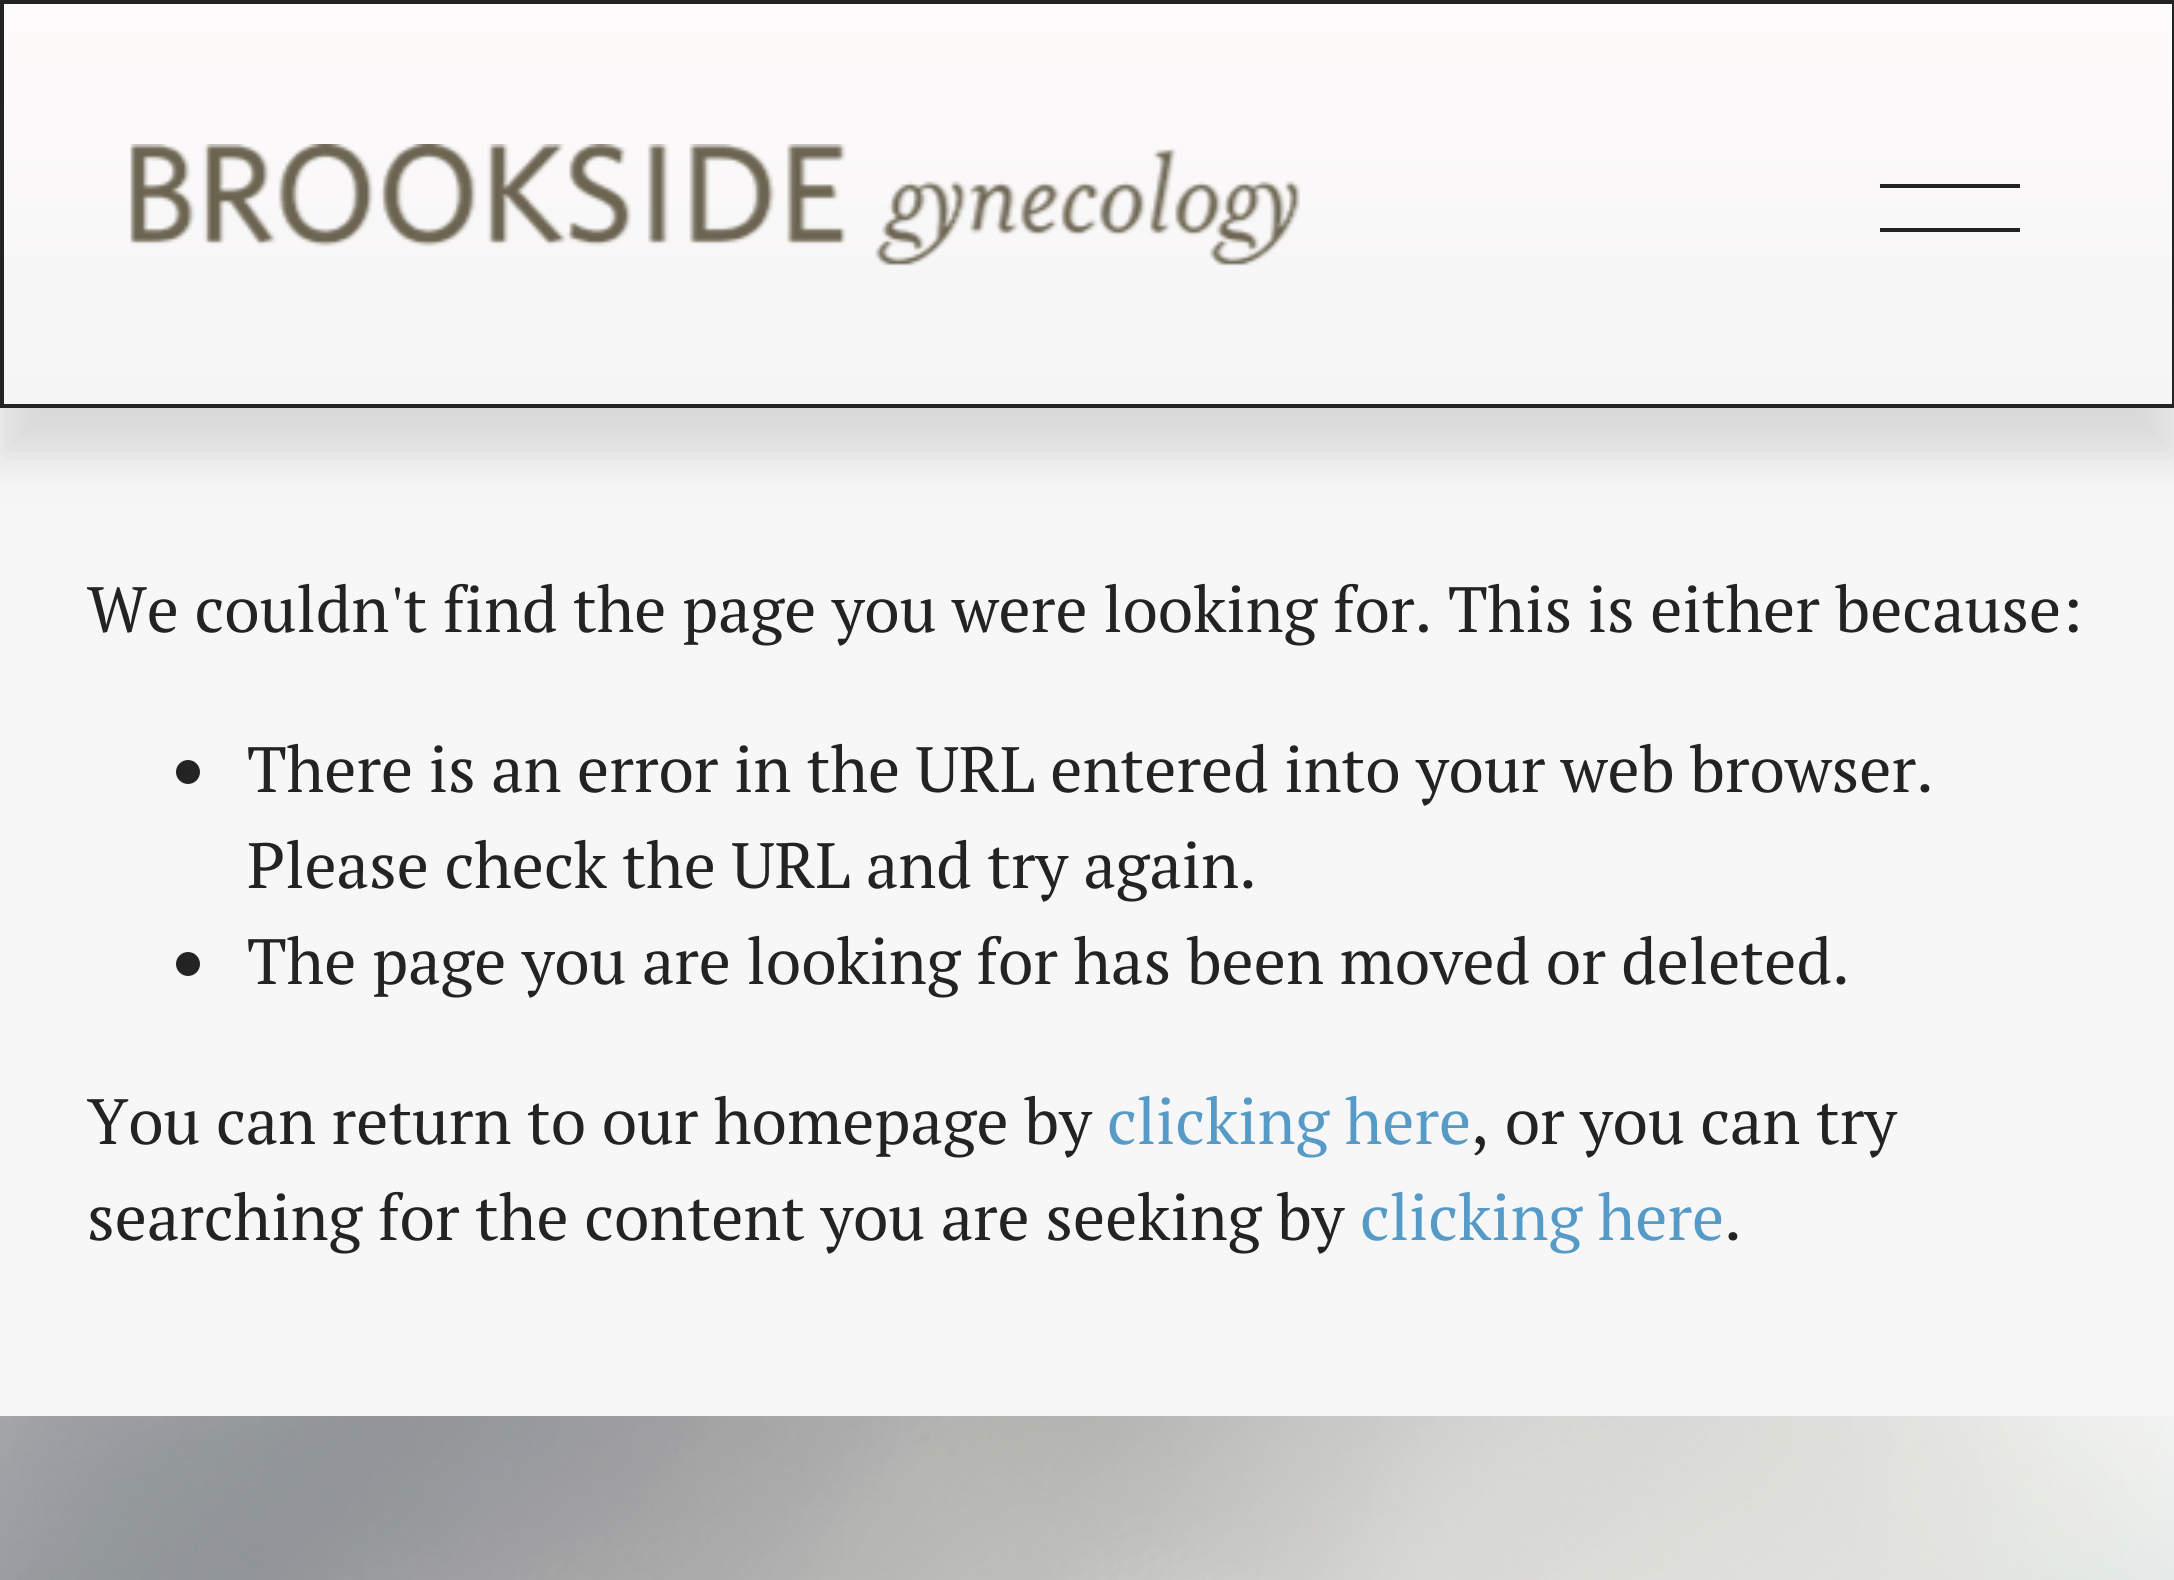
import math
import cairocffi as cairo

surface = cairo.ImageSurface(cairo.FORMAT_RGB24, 2174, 1580)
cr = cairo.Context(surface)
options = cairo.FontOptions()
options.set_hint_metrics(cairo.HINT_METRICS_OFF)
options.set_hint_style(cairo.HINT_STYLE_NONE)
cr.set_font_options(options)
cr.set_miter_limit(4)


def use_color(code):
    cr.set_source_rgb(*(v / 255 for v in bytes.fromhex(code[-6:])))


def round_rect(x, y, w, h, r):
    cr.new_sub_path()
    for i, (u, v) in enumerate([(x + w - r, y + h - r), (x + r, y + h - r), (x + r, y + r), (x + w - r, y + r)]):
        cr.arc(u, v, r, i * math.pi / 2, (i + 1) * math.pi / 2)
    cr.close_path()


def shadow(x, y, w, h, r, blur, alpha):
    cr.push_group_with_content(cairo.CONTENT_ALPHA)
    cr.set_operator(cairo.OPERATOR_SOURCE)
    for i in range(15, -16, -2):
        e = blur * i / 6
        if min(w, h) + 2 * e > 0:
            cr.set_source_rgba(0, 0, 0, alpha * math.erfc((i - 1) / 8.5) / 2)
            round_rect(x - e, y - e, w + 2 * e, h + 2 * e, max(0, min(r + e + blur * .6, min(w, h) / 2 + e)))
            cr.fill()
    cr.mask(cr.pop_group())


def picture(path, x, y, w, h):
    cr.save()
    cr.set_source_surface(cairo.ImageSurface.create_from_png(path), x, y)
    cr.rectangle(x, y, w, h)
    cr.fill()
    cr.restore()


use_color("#f7f7f7")
cr.paint()
use_color("#d8d8d8")
shadow(0, 48, 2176, 408, 0, 24, 1)
gradient = cairo.LinearGradient(1088, 0, 1088, 408)
gradient.add_color_stop_rgba(0, 0.996, 0.984, 0.984, 1)
gradient.add_color_stop_rgba(1, 0.961, 0.961, 0.961, 1)
cr.set_source(gradient)
cr.rectangle(4, 4, 2168, 400)
cr.fill()
cr.rectangle(2, 2, 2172, 404)
use_color("#242323")
cr.set_line_width(4)
cr.stroke()
picture("img1.png", 130, 144, 1170, 122)
cr.rectangle(1880, 184, 140, 4)
cr.fill()
cr.rectangle(1880, 228, 140, 4)
cr.fill()
cr.select_font_face("PT Serif")
cr.set_font_size(64)
cr.move_to(87, 632)
cr.show_text("We couldn't find the page you were looking for. This is either because:")
cr.new_path()
cr.arc(188, 772, 12, 0, 2 * math.pi)
cr.fill()
cr.move_to(247, 792)
cr.show_text("There is an error in the URL entered into your web browser.")
cr.move_to(247, 888)
cr.show_text("Please check the URL and try again.")
cr.new_path()
cr.arc(188, 964, 12, 0, 2 * math.pi)
cr.fill()
cr.move_to(247, 984)
cr.show_text("The page you are looking for has been moved or deleted.")
cr.move_to(87, 1144)
cr.show_text("You can return to our homepage by")
use_color("#569ac8")
cr.move_to(1107, 1144)
cr.show_text("clicking here")
use_color("#242323")
cr.move_to(1471, 1144)
cr.show_text(", or you can try")
cr.move_to(87, 1240)
cr.show_text("searching for the content you are seeking by")
use_color("#569ac8")
cr.move_to(1360, 1240)
cr.show_text("clicking here")
use_color("#242323")
cr.move_to(1724, 1240)
cr.show_text(".")
picture("img2.png", 0, 1416, 2174, 164)
surface.write_to_png("result.png")
